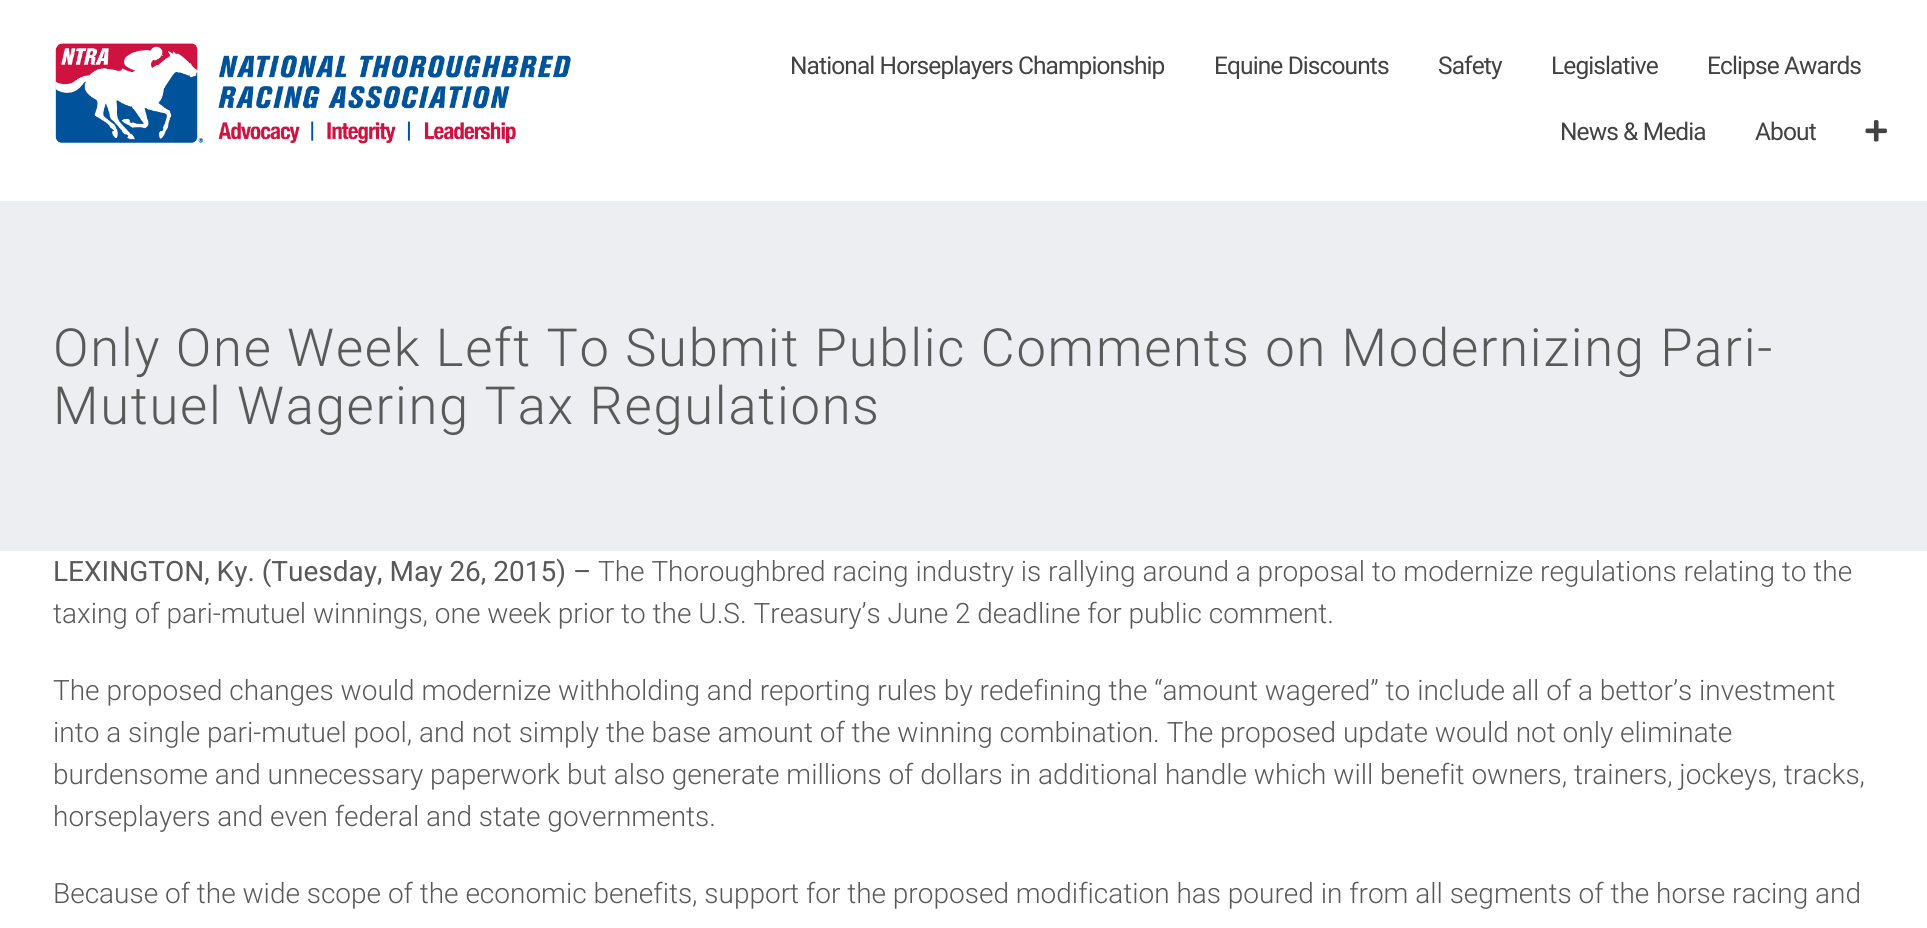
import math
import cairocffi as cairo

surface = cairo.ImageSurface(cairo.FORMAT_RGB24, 1927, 928)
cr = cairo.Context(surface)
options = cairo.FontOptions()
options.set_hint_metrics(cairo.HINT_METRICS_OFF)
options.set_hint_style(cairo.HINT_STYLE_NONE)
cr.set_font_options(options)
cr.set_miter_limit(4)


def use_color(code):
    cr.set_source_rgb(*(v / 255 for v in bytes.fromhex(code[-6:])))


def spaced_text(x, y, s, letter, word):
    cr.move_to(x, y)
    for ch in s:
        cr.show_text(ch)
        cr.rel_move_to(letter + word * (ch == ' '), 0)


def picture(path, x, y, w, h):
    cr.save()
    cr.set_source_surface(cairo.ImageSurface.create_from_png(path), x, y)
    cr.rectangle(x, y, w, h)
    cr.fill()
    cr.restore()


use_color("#ffffff")
cr.paint()
picture("img1.png", 55, 43, 516, 101)
cr.select_font_face("Roboto")
cr.set_font_size(24.5)
use_color("#424242")
spaced_text(790, 74, "National Horseplayers Championship", -0.9, 0)
spaced_text(1214, 74, "Equine Discounts", -0.9, 0)
spaced_text(1438, 74, "Safety", -0.9, 0)
spaced_text(1551, 74, "Legislative", -0.9, 0)
spaced_text(1707, 74, "Eclipse Awards", -0.9, 0)
spaced_text(1560, 140, "News & Media", -0.9, 0)
spaced_text(1755, 140, "About", -0.9, 0)
picture("img2.png", 1865, 120, 22, 22)
use_color("#edeef2")
cr.rectangle(0, 201, 1927, 350)
cr.fill()
cr.select_font_face("Roboto Light")
cr.set_font_size(52.5)
use_color("#595959")
spaced_text(53, 366, "Only One Week Left To Submit Public Comments on Modernizing Pari-", 1.75, 0)
spaced_text(53, 424, "Mutuel Wagering Tax Regulations", 1.75, 0)
cr.select_font_face("Roboto")
cr.set_font_size(28)
cr.move_to(53, 581)
cr.show_text("LEXINGTON, Ky. (Tuesday, May 26, 2015) –")
cr.select_font_face("Roboto Light")
cr.move_to(598, 581)
cr.show_text("The Thoroughbred racing industry is rallying around a proposal to modernize regulations relating to the")
cr.move_to(53, 623)
cr.show_text("taxing of pari-mutuel winnings, one week prior to the U.S. Treasury’s June 2 deadline for public comment.")
cr.move_to(53, 700)
cr.show_text("The proposed changes would modernize withholding and reporting rules by redefining the “amount wagered” to include all of a bettor’s investment")
cr.move_to(53, 742)
cr.show_text("into a single pari-mutuel pool, and not simply the base amount of the winning combination. The proposed update would not only eliminate")
cr.move_to(53, 784)
cr.show_text("burdensome and unnecessary paperwork but also generate millions of dollars in additional handle which will benefit owners, trainers, jockeys, tracks,")
cr.move_to(53, 826)
cr.show_text("horseplayers and even federal and state governments.")
cr.move_to(53, 903)
cr.show_text("Because of the wide scope of the economic benefits, support for the proposed modification has poured in from all segments of the horse racing and")
surface.write_to_png("result.png")
